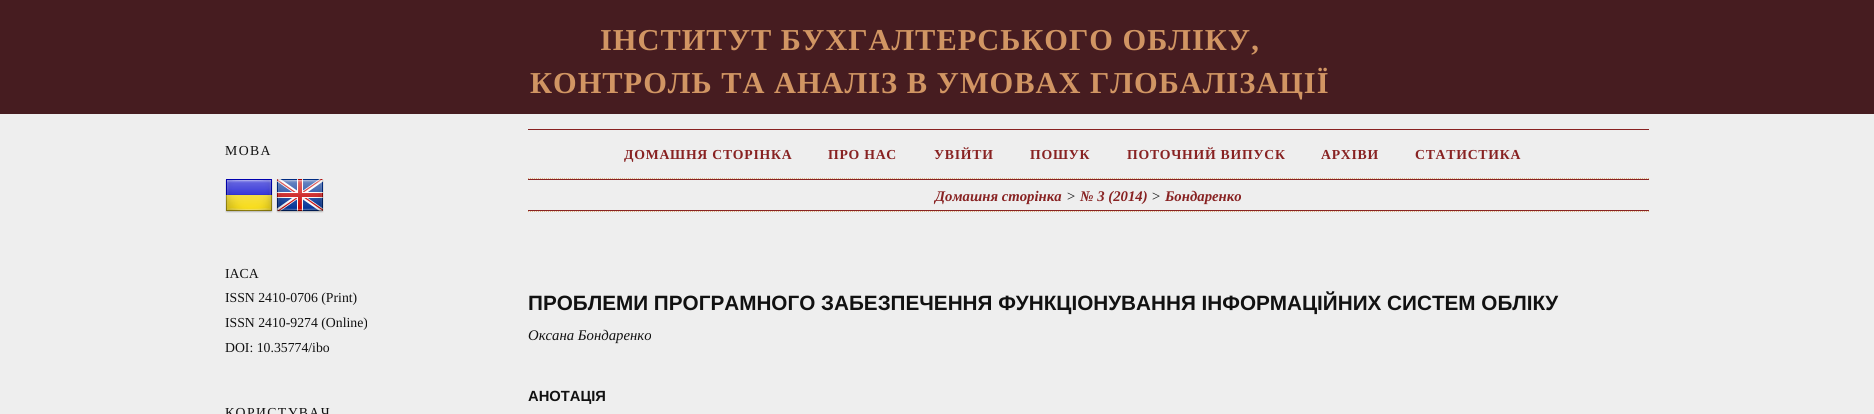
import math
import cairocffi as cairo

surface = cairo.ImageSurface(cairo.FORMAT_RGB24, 1874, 414)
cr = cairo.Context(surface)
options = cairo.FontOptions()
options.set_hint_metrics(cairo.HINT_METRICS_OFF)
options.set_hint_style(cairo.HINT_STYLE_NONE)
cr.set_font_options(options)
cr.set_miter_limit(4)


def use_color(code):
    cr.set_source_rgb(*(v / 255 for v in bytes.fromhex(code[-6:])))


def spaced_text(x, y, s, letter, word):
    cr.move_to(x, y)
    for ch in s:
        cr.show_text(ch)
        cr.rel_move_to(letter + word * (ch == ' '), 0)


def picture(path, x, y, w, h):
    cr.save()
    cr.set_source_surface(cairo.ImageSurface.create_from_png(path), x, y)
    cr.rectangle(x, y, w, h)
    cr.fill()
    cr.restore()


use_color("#eeeeee")
cr.paint()
use_color("#461c20")
cr.rectangle(0, 0, 1874, 114)
cr.fill()
cr.select_font_face("Liberation Serif", cairo.FONT_SLANT_NORMAL, cairo.FONT_WEIGHT_BOLD)
cr.set_font_size(30.4)
use_color("#d19563")
spaced_text(600, 50, "ІНСТИТУТ БУХГАЛТЕРСЬКОГО ОБЛІКУ,", 1, 0)
spaced_text(530, 93, "КОНТРОЛЬ ТА АНАЛІЗ В УМОВАХ ГЛОБАЛІЗАЦІЇ", 1, 0)
cr.select_font_face("Liberation Serif")
cr.set_font_size(13.75)
use_color("#111111")
spaced_text(225, 155, "МОВА", 1.4, 0)
picture("img1.png", 225, 179, 48, 34)
picture("img2.png", 276, 179, 48, 34)
cr.move_to(225, 278)
cr.show_text("IACA")
cr.move_to(225, 302)
cr.show_text("ISSN 2410-0706 (Print)")
cr.move_to(225, 327)
cr.show_text("ISSN 2410-9274 (Online)")
cr.move_to(225, 352)
cr.show_text("DOI: 10.35774/ibo")
spaced_text(225, 417, "КОРИСТУВАЧ", 1.4, 0)
use_color("#882222")
cr.rectangle(528, 129, 1121, 1)
cr.fill()
cr.new_path()
cr.move_to(528, 178.5)
cr.line_to(1649, 178.5)
use_color("#deb887")
cr.set_line_width(1)
cr.set_dash([1, 1])
cr.stroke()
cr.select_font_face("Liberation Serif", cairo.FONT_SLANT_NORMAL, cairo.FONT_WEIGHT_BOLD)
use_color("#882222")
spaced_text(624, 159, "ДОМАШНЯ СТОРІНКА", 0.75, 0)
spaced_text(828, 159, "ПРО НАС", 0.75, 0)
spaced_text(934, 159, "УВІЙТИ", 0.75, 0)
spaced_text(1030, 159, "ПОШУК", 0.75, 0)
spaced_text(1127, 159, "ПОТОЧНИЙ ВИПУСК", 0.75, 0)
spaced_text(1321, 159, "АРХІВИ", 0.75, 0)
spaced_text(1415, 159, "СТАТИСТИКА", 0.75, 0)
cr.rectangle(528, 179, 1121, 1)
cr.fill()
cr.rectangle(528, 210, 1121, 1)
cr.fill()
cr.select_font_face("Liberation Serif", cairo.FONT_SLANT_ITALIC, cairo.FONT_WEIGHT_BOLD)
cr.set_font_size(14.75)
cr.move_to(935, 201)
cr.show_text("Домашня сторінка")
cr.select_font_face("Liberation Serif", cairo.FONT_SLANT_ITALIC)
use_color("#111111")
cr.move_to(1066, 201)
cr.show_text(">")
cr.select_font_face("Liberation Serif", cairo.FONT_SLANT_ITALIC, cairo.FONT_WEIGHT_BOLD)
use_color("#882222")
cr.move_to(1080, 201)
cr.show_text("№ 3 (2014)")
cr.select_font_face("Liberation Serif", cairo.FONT_SLANT_ITALIC)
use_color("#111111")
cr.move_to(1151, 201)
cr.show_text(">")
cr.select_font_face("Liberation Serif", cairo.FONT_SLANT_ITALIC, cairo.FONT_WEIGHT_BOLD)
use_color("#882222")
cr.move_to(1165, 201)
cr.show_text("Бондаренко")
cr.new_path()
cr.move_to(528, 211.5)
cr.line_to(1649, 211.5)
use_color("#deb887")
cr.stroke()
cr.select_font_face("Liberation Sans", cairo.FONT_SLANT_NORMAL, cairo.FONT_WEIGHT_BOLD)
cr.set_font_size(20.7)
use_color("#111111")
cr.move_to(528, 310)
cr.show_text("ПРОБЛЕМИ ПРОГРАМНОГО ЗАБЕЗПЕЧЕННЯ ФУНКЦІОНУВАННЯ ІНФОРМАЦІЙНИХ СИСТЕМ ОБЛІКУ")
cr.select_font_face("Liberation Serif", cairo.FONT_SLANT_ITALIC)
cr.set_font_size(14.75)
cr.move_to(528, 340)
cr.show_text("Оксана Бондаренко")
cr.select_font_face("Liberation Sans", cairo.FONT_SLANT_NORMAL, cairo.FONT_WEIGHT_BOLD)
cr.move_to(528, 401)
cr.show_text("АНОТАЦІЯ")
surface.write_to_png("result.png")
